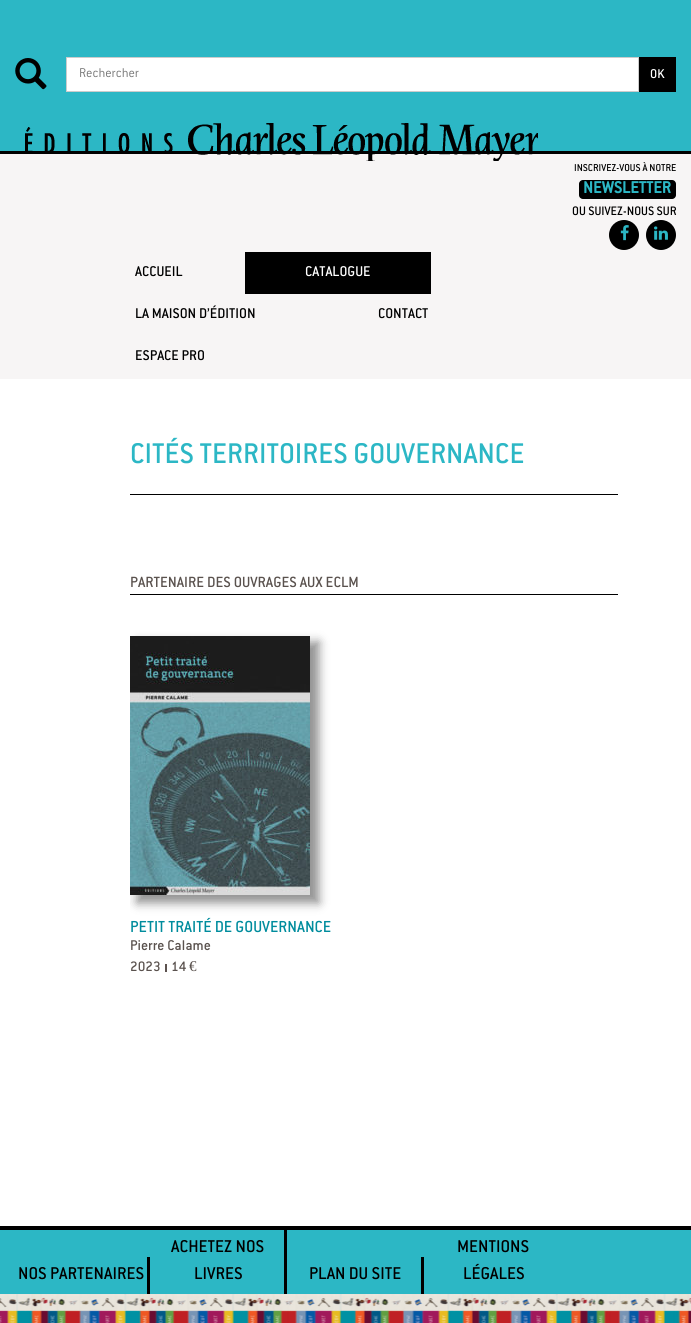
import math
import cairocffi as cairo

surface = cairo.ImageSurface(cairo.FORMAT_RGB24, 691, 1323)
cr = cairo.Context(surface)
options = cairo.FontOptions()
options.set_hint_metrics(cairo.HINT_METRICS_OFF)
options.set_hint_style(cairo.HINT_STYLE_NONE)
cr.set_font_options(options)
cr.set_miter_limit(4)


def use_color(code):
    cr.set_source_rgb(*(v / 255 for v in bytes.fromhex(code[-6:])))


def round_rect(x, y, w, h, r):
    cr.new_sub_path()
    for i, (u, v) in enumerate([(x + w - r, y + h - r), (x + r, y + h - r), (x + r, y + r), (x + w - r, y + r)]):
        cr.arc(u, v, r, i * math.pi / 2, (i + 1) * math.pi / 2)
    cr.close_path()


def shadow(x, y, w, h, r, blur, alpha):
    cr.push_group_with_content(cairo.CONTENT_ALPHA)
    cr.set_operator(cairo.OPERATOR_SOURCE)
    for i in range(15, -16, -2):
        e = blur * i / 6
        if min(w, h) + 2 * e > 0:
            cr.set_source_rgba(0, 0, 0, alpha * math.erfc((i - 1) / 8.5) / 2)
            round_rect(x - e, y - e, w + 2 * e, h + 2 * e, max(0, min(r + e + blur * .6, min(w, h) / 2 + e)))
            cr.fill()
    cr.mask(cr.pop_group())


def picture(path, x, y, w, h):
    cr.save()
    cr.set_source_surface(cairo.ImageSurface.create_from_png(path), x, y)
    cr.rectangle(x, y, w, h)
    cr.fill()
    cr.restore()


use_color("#ffffff")
cr.paint()
use_color("#2cb7c5")
cr.rectangle(0, 0, 691, 151)
cr.fill()
use_color("#000000")
cr.rectangle(0, 151, 691, 3)
cr.fill()
picture("img1.png", 15, 58, 32, 32)
use_color("#ffffff")
cr.rectangle(66.5, 57.5, 572, 34)
cr.fill_preserve()
use_color("#cccccc")
cr.set_line_width(1)
cr.stroke()
cr.select_font_face("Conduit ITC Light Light")
cr.set_font_size(14)
use_color("#777777")
cr.move_to(79, 77)
cr.show_text("Rechercher")
use_color("#000000")
cr.rectangle(639, 57, 37, 35)
cr.fill()
cr.select_font_face("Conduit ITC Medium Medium")
use_color("#ffffff")
cr.move_to(650, 78)
cr.show_text("OK")
use_color("#f7f5f5")
cr.rectangle(0, 154, 691, 225)
cr.fill()
picture("img2.png", 25, 123, 513, 38)
cr.set_font_size(11)
use_color("#000000")
cr.move_to(574, 171)
cr.show_text("INSCRIVEZ-VOUS À NOTRE")
round_rect(579, 180, 97, 19, 4)
cr.fill()
cr.select_font_face("Conduit ITC Medium", cairo.FONT_SLANT_NORMAL, cairo.FONT_WEIGHT_BOLD)
cr.set_font_size(18)
use_color("#2cb7c5")
cr.move_to(583, 193)
cr.show_text("NEWSLETTER")
cr.select_font_face("Conduit ITC Medium Medium")
cr.set_font_size(13.5)
use_color("#000000")
cr.move_to(572, 215)
cr.show_text("OU SUIVEZ-NOUS SUR")
cr.new_path()
cr.arc(624, 235, 15, 0, 2 * math.pi)
cr.fill()
picture("img3.png", 620, 225, 9, 16)
cr.arc(661, 235, 15, 0, 2 * math.pi)
cr.fill()
picture("img4.png", 654, 226, 14, 14)
cr.set_font_size(15.5)
cr.move_to(135, 276)
cr.show_text("ACCUEIL")
cr.rectangle(245, 252, 186, 42)
cr.fill()
use_color("#ffffff")
cr.move_to(305, 276)
cr.show_text("CATALOGUE")
use_color("#000000")
cr.move_to(135, 318)
cr.show_text("LA MAISON D’ÉDITION")
cr.move_to(378, 318)
cr.show_text("CONTACT")
cr.move_to(135, 360)
cr.show_text("ESPACE PRO")
cr.rectangle(130, 494, 488, 1)
cr.fill()
cr.set_font_size(31.25)
use_color("#2cb7c5")
cr.move_to(130, 463)
cr.show_text("CITÉS TERRITOIRES GOUVERNANCE")
use_color("#000000")
cr.rectangle(130, 594, 488, 1)
cr.fill()
cr.set_font_size(16.25)
use_color("#5a524e")
cr.move_to(130, 587)
cr.show_text("PARTENAIRE DES OUVRAGES AUX ECLM")
cr.save()
cr.rectangle(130, 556, 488, 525)
cr.clip()
use_color("#000000")
shadow(137, 642, 182, 261, 0, 5, 0.43)
cr.restore()
picture("img5.png", 130, 636, 180, 259)
cr.set_font_size(17.5)
use_color("#008c9d")
cr.move_to(130, 932)
cr.show_text("PETIT TRAITÉ DE GOUVERNANCE")
cr.set_font_size(15.5)
use_color("#5a524e")
cr.move_to(130, 950)
cr.show_text("Pierre Calame")
cr.select_font_face("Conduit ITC")
cr.set_font_size(15)
cr.move_to(130, 971)
cr.show_text("2023")
use_color("#5c524f")
cr.rectangle(165, 964, 2, 8)
cr.fill()
use_color("#5a524e")
cr.move_to(171, 971)
cr.show_text("14")
cr.select_font_face("Liberation Serif")
cr.move_to(189, 971)
cr.show_text("€")
use_color("#2cb7c5")
cr.rectangle(0, 1230, 691, 64)
cr.fill()
picture("img6.png", 0, 1294, 691, 29)
use_color("#000000")
cr.rectangle(0, 1226, 691, 4)
cr.fill()
cr.rectangle(147, 1257, 3, 37)
cr.fill()
cr.select_font_face("Conduit ITC Medium Medium")
cr.set_font_size(18.75)
cr.move_to(18, 1279)
cr.show_text("NOS PARTENAIRES")
cr.rectangle(284, 1230, 3, 64)
cr.fill()
cr.move_to(171, 1252)
cr.show_text("ACHETEZ NOS")
cr.move_to(194, 1279)
cr.show_text("LIVRES")
cr.rectangle(421, 1257, 3, 37)
cr.fill()
cr.move_to(309, 1279)
cr.show_text("PLAN DU SITE")
cr.move_to(457, 1252)
cr.show_text("MENTIONS")
cr.move_to(463, 1279)
cr.show_text("LÉGALES")
surface.write_to_png("result.png")
